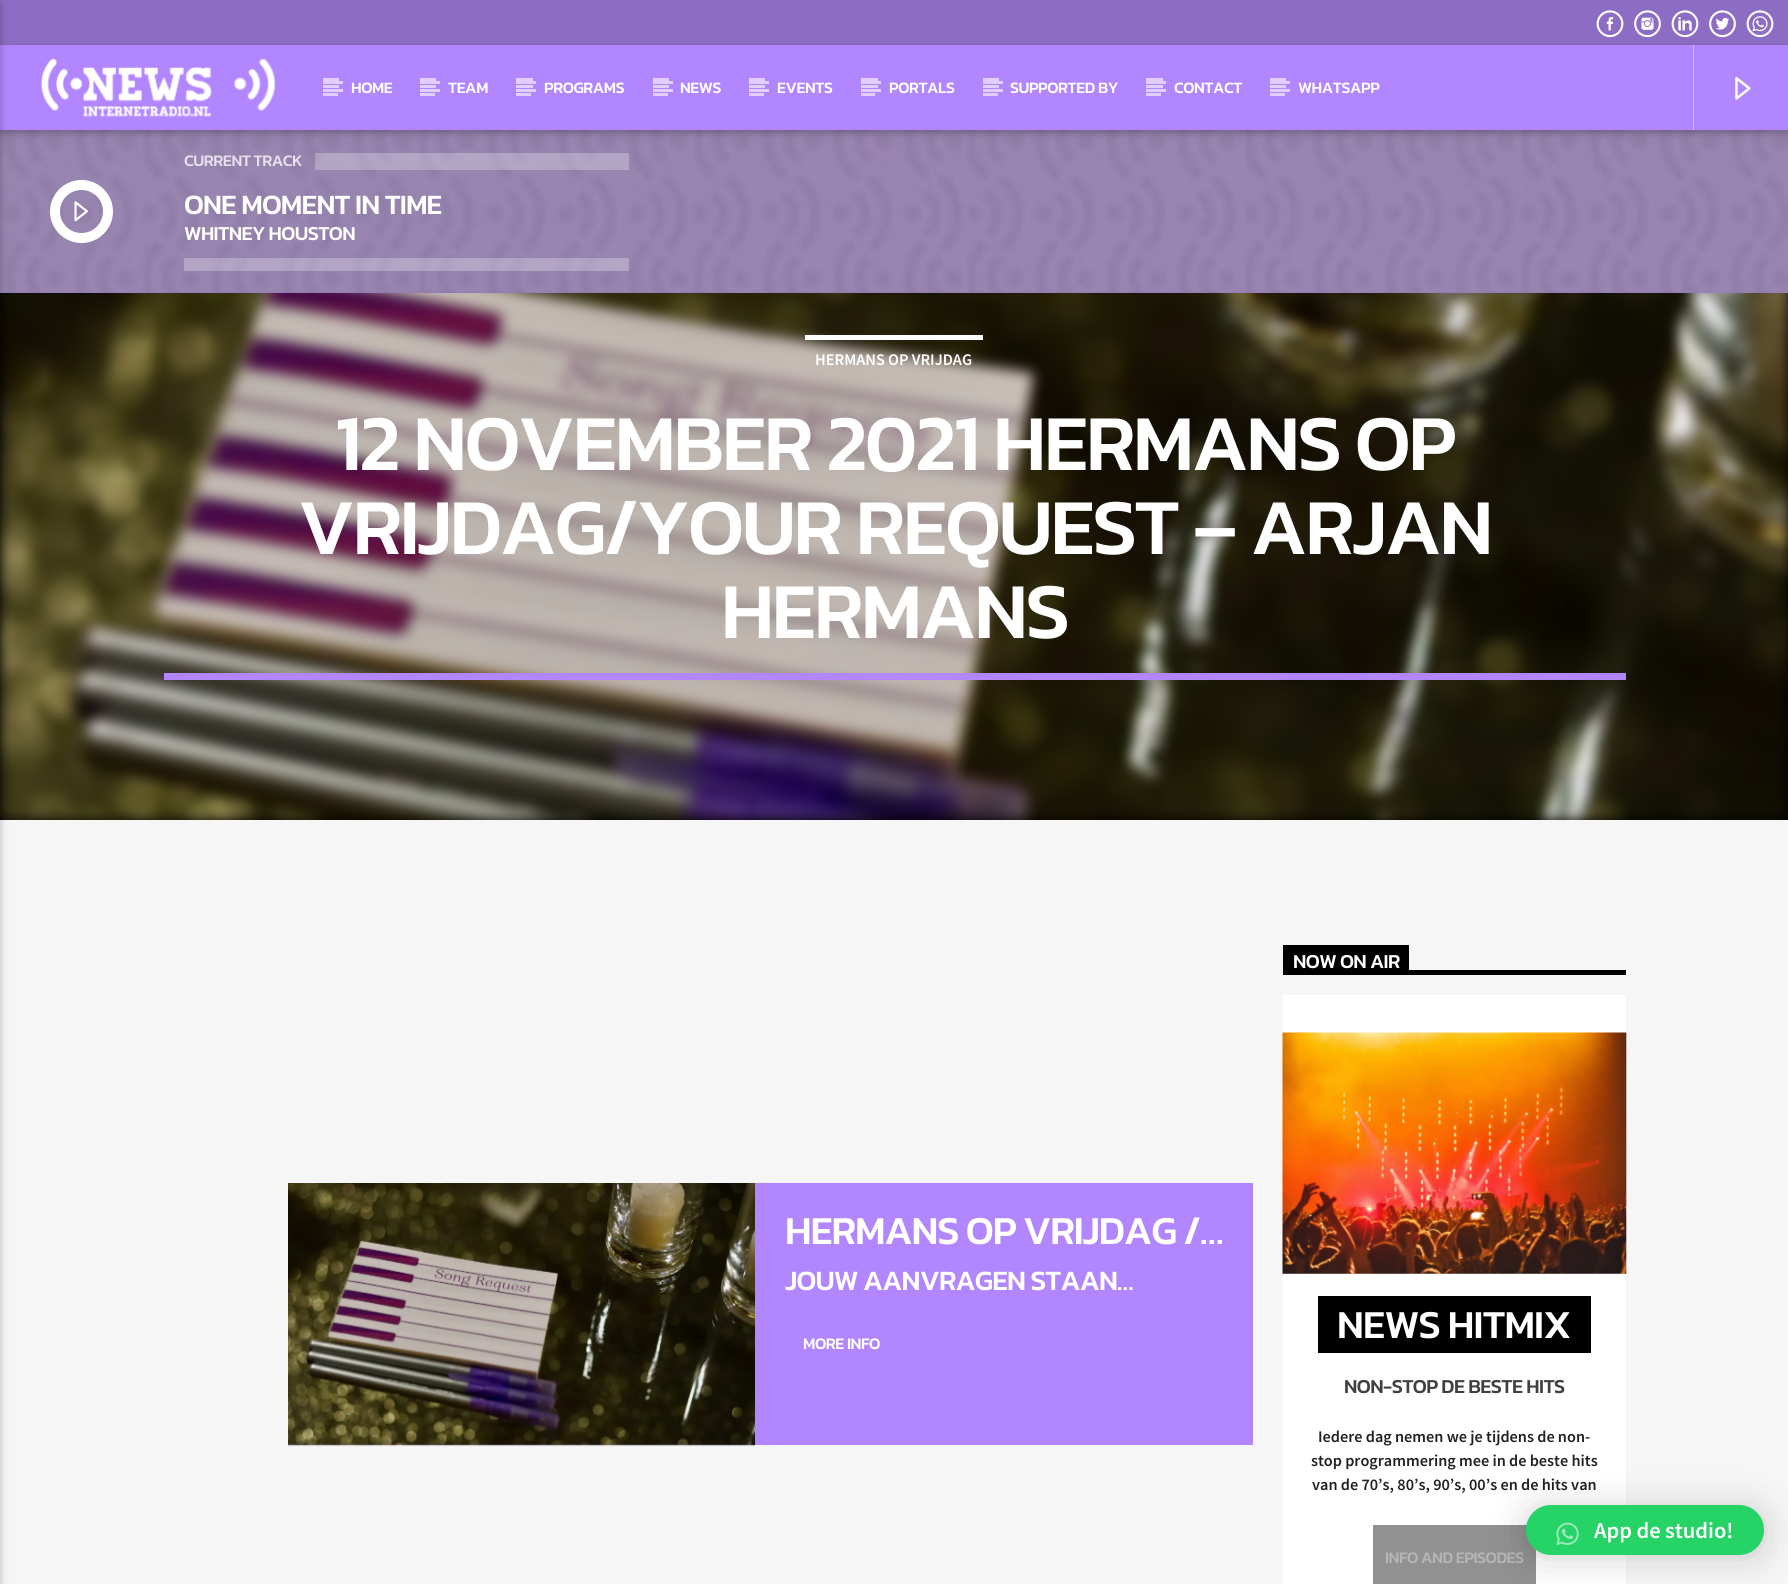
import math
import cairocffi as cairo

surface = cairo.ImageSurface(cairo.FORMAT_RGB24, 1788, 1584)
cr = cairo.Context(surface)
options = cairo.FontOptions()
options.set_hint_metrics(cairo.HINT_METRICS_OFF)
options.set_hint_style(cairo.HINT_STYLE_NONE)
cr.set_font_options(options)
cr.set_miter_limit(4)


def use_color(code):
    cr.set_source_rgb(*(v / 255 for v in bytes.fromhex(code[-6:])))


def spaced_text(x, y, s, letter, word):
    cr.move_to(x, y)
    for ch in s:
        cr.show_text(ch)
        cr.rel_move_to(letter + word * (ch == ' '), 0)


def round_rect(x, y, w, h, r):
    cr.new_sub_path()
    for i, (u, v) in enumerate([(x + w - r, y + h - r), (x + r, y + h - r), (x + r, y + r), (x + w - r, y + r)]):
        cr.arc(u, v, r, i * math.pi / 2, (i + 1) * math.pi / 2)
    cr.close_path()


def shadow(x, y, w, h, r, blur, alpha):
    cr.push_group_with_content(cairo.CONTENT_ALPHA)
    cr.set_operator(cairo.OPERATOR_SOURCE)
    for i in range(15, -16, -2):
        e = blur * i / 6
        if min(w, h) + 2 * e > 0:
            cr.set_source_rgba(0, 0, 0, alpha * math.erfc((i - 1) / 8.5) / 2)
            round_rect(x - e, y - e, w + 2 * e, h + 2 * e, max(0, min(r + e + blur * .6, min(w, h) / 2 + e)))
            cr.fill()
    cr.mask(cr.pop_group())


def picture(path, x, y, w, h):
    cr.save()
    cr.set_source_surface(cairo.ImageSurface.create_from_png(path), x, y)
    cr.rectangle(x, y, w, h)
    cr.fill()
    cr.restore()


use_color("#f6f6f6")
cr.paint()
use_color("#8d6dc4")
cr.rectangle(0, 0, 1788, 45)
cr.fill()
picture("img1.png", 1596, 10, 28, 28)
picture("img2.png", 1634, 10, 27, 28)
picture("img3.png", 1671, 10, 28, 28)
picture("img4.png", 1709, 10, 27, 28)
picture("img5.png", 1746, 10, 28, 28)
cr.rectangle(0, 130, 1788, 163)
cr.fill()
picture("img8.png", 0, 130, 1788, 163)
use_color("#000000")
shadow(0, 48, 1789, 85, 0, 6, 0.12)
shadow(0, 48, 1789, 85, 0, 3, 0.16)
use_color("#b286ff")
cr.rectangle(0, 45, 1788, 85)
cr.fill()
use_color("#000000")
cr.rectangle(0, 293, 1788, 527)
cr.fill()
picture("img10.png", 0, 293, 1788, 527)
use_color("#000000")
shadow(-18, 3, 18, 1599, 0, 6, 0.12)
shadow(-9, 3, 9, 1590, 0, 3, 0.16)
picture("img6.png", 41, 58, 235, 59)
use_color("#e0cfff")
cr.rectangle(323, 78, 16, 3)
cr.fill()
cr.rectangle(323, 85, 16, 3)
cr.fill()
cr.rectangle(323, 81, 20, 3)
cr.fill()
cr.rectangle(323, 89, 20, 3)
cr.fill()
cr.select_font_face("Kanit Medium")
cr.set_font_size(16)
use_color("#ffffff")
spaced_text(351, 93, "HOME", -0.4, 0)
use_color("#e0cfff")
cr.rectangle(323, 93, 15, 3)
cr.fill()
cr.rectangle(420, 78, 16, 3)
cr.fill()
cr.rectangle(420, 85, 16, 3)
cr.fill()
cr.rectangle(420, 81, 20, 3)
cr.fill()
cr.rectangle(420, 89, 20, 3)
cr.fill()
use_color("#ffffff")
spaced_text(448, 93, "TEAM", -0.4, 0)
use_color("#e0cfff")
cr.rectangle(420, 93, 15, 3)
cr.fill()
cr.rectangle(516, 78, 17, 3)
cr.fill()
cr.rectangle(516, 85, 17, 3)
cr.fill()
cr.rectangle(516, 81, 20, 3)
cr.fill()
cr.rectangle(516, 89, 20, 3)
cr.fill()
use_color("#ffffff")
spaced_text(544, 93, "PROGRAMS", -0.4, 0)
use_color("#e0cfff")
cr.rectangle(516, 93, 15, 3)
cr.fill()
cr.rectangle(653, 78, 16, 3)
cr.fill()
cr.rectangle(653, 85, 16, 3)
cr.fill()
cr.rectangle(653, 81, 20, 3)
cr.fill()
cr.rectangle(653, 89, 20, 3)
cr.fill()
use_color("#ffffff")
spaced_text(680, 93, "NEWS", -0.4, 0)
use_color("#e0cfff")
cr.rectangle(653, 93, 15, 3)
cr.fill()
cr.rectangle(749, 78, 16, 3)
cr.fill()
cr.rectangle(749, 85, 16, 3)
cr.fill()
cr.rectangle(749, 81, 20, 3)
cr.fill()
cr.rectangle(749, 89, 20, 3)
cr.fill()
use_color("#ffffff")
spaced_text(777, 93, "EVENTS", -0.4, 0)
use_color("#e0cfff")
cr.rectangle(749, 93, 15, 3)
cr.fill()
cr.rectangle(861, 78, 17, 3)
cr.fill()
cr.rectangle(861, 85, 17, 3)
cr.fill()
cr.rectangle(861, 81, 20, 3)
cr.fill()
cr.rectangle(861, 89, 20, 3)
cr.fill()
use_color("#ffffff")
spaced_text(889, 93, "PORTALS", -0.4, 0)
use_color("#e0cfff")
cr.rectangle(861, 93, 14, 3)
cr.fill()
cr.rectangle(983, 78, 16, 3)
cr.fill()
cr.rectangle(983, 85, 16, 3)
cr.fill()
cr.rectangle(983, 81, 20, 3)
cr.fill()
cr.rectangle(983, 89, 20, 3)
cr.fill()
use_color("#ffffff")
spaced_text(1010, 93, "SUPPORTED BY", -0.4, 0)
use_color("#e0cfff")
cr.rectangle(983, 93, 15, 3)
cr.fill()
cr.rectangle(1146, 78, 17, 3)
cr.fill()
cr.rectangle(1146, 85, 17, 3)
cr.fill()
cr.rectangle(1146, 81, 20, 3)
cr.fill()
cr.rectangle(1146, 89, 20, 3)
cr.fill()
use_color("#ffffff")
spaced_text(1174, 93, "CONTACT", -0.4, 0)
use_color("#e0cfff")
cr.rectangle(1146, 93, 15, 3)
cr.fill()
cr.rectangle(1270, 78, 16, 3)
cr.fill()
cr.rectangle(1270, 85, 16, 3)
cr.fill()
cr.rectangle(1270, 81, 20, 3)
cr.fill()
cr.rectangle(1270, 89, 20, 3)
cr.fill()
use_color("#ffffff")
spaced_text(1298, 93, "WHATSAPP", -0.4, 0)
use_color("#e0cfff")
cr.rectangle(1270, 93, 15, 3)
cr.fill()
use_color("#cfb4ff")
cr.rectangle(1693, 45, 1, 85)
cr.fill()
picture("img7.png", 1735, 77, 16, 23)
cr.arc(81.5, 211.5, 26.5, 0, 2 * math.pi)
use_color("#ffffff")
cr.set_line_width(10)
cr.stroke()
picture("img9.png", 74, 201, 14, 21)
cr.set_font_size(16.25)
use_color("#e5e0eb")
spaced_text(184, 166, "CURRENT TRACK", -0.5, 0)
cr.set_source_rgba(1, 1, 1, 0.26)
cr.rectangle(315, 153, 314, 17)
cr.fill()
cr.set_font_size(28.25)
use_color("#ffffff")
spaced_text(184, 214, "ONE MOMENT IN TIME", -0.85, 0)
cr.set_font_size(20)
spaced_text(184, 240, "WHITNEY HOUSTON", -0.6, 0)
cr.set_source_rgba(1, 1, 1, 0.26)
cr.rectangle(184, 258, 445, 13)
cr.fill()
use_color("#ffffff")
cr.rectangle(805, 335, 178, 5)
cr.fill()
cr.select_font_face("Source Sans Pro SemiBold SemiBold")
cr.set_font_size(16.25)
cr.move_to(815, 365)
cr.show_text("HERMANS OP VRIJDAG")
use_color("#b286ff")
cr.rectangle(164, 673, 1462, 7)
cr.fill()
cr.select_font_face("Kanit Medium")
cr.set_font_size(80)
use_color("#ffffff")
spaced_text(335, 470, "12 NOVEMBER 2021 HERMANS OP", -2.4, 0)
spaced_text(298, 554, "VRIJDAG/YOUR REQUEST – ARJAN", -2.4, 0)
spaced_text(721, 638, "HERMANS", -2.4, 0)
use_color("#b286ff")
cr.rectangle(288, 1183, 965, 262)
cr.fill()
picture("img11.png", 288, 1183, 467, 263)
cr.set_font_size(40)
use_color("#ffffff")
spaced_text(785, 1244, "HERMANS OP VRIJDAG /…", -1.2, 0)
cr.set_font_size(28.25)
spaced_text(785, 1290, "JOUW AANVRAGEN STAAN…", -0.85, 0)
cr.set_font_size(16.25)
spaced_text(803, 1349, "MORE INFO", -0.5, 0)
use_color("#000000")
cr.rectangle(1409, 970, 217, 5)
cr.fill()
cr.rectangle(1283, 945, 126, 30)
cr.fill()
cr.set_font_size(20)
use_color("#ffffff")
spaced_text(1293, 968, "NOW ON AIR", -0.6, 0)
cr.rectangle(1283, 995, 343, 589)
cr.fill()
picture("img12.png", 1282, 1032, 345, 242)
use_color("#000000")
cr.rectangle(1318, 1296, 273, 57)
cr.fill()
cr.set_font_size(40)
use_color("#ffffff")
spaced_text(1337, 1338, "NEWS HITMIX", -0.85, 0)
cr.set_font_size(20)
use_color("#404040")
spaced_text(1344, 1393, "NON-STOP DE BESTE HITS", -0.6, 0)
cr.select_font_face("Source Sans Pro SemiBold SemiBold")
cr.set_font_size(16.25)
use_color("#212121")
cr.move_to(1318, 1442)
cr.show_text("Iedere dag nemen we je tijdens de non-")
cr.move_to(1311, 1466)
cr.show_text("stop programmering mee in de beste hits")
cr.move_to(1312, 1490)
cr.show_text("van de 70’s, 80’s, 90’s, 00’s en de hits van")
use_color("#919191")
cr.rectangle(1373, 1525, 163, 59)
cr.fill()
cr.select_font_face("Kanit Medium")
use_color("#b5b5b5")
spaced_text(1385, 1563, "INFO AND EPISODES", -0.5, 0)
use_color("#000000")
shadow(1526, 1508, 238, 50, 25, 20, 0.16)
shadow(1526, 1506, 238, 50, 25, 4, 0.06)
use_color("#25d366")
round_rect(1526, 1505, 238, 50, 25)
cr.fill()
picture("img13.png", 1556, 1522, 23, 24)
cr.select_font_face("Source Sans Pro SemiBold SemiBold")
cr.set_font_size(22.5)
use_color("#ffffff")
cr.move_to(1594, 1538)
cr.show_text("App de studio!")
surface.write_to_png("result.png")
